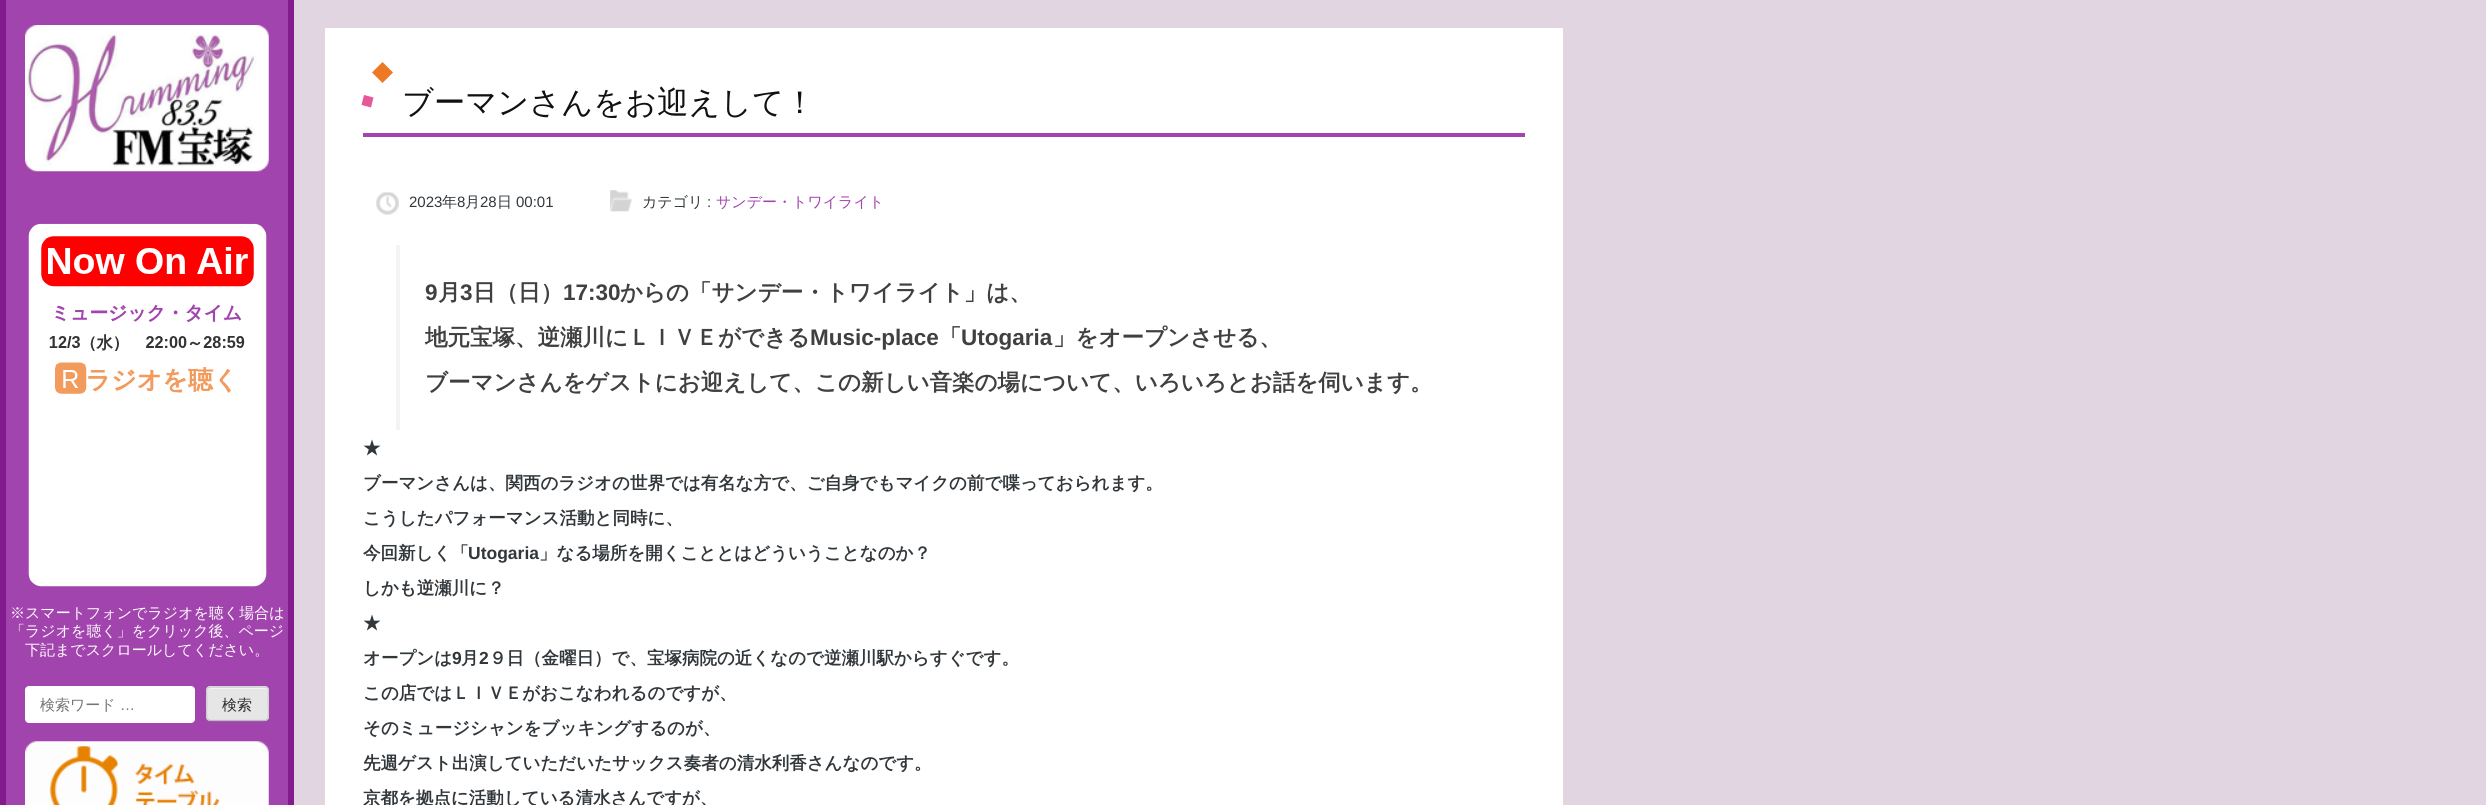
import math
import cairocffi as cairo

surface = cairo.ImageSurface(cairo.FORMAT_RGB24, 2486, 805)
cr = cairo.Context(surface)
options = cairo.FontOptions()
options.set_hint_metrics(cairo.HINT_METRICS_OFF)
options.set_hint_style(cairo.HINT_STYLE_NONE)
cr.set_font_options(options)
cr.set_miter_limit(4)


def use_color(code):
    cr.set_source_rgb(*(v / 255 for v in bytes.fromhex(code[-6:])))


def round_rect(x, y, w, h, r):
    cr.new_sub_path()
    for i, (u, v) in enumerate([(x + w - r, y + h - r), (x + r, y + h - r), (x + r, y + r), (x + w - r, y + r)]):
        cr.arc(u, v, r, i * math.pi / 2, (i + 1) * math.pi / 2)
    cr.close_path()


def picture(path, x, y, w, h):
    cr.save()
    cr.set_source_surface(cairo.ImageSurface.create_from_png(path), x, y)
    cr.rectangle(x, y, w, h)
    cr.fill()
    cr.restore()


use_color("#e2d5e2")
cr.paint()
use_color("#a244ae")
cr.rectangle(6, 0, 282, 805)
cr.fill()
use_color("#811b8e")
cr.rectangle(288, 0, 6, 805)
cr.fill()
cr.rectangle(0, 0, 6, 805)
cr.fill()
picture("img1.png", 25, 25, 244, 147)
picture("img2.png", 28, 223, 239, 364)
cr.select_font_face("WenQuanYi Zen Hei Medium")
cr.set_font_size(15)
use_color("#ffffff")
cr.move_to(10, 618)
cr.show_text("※スマートフォンでラジオを聴く場合は")
cr.move_to(10, 636)
cr.show_text("「ラジオを聴く」をクリック後、ページ")
cr.move_to(25, 655)
cr.show_text("下記までスクロールしてください。")
round_rect(25, 686, 170, 37, 4)
cr.fill()
use_color("#757575")
cr.move_to(40, 710)
cr.show_text("検索ワード")
cr.select_font_face("Liberation Sans")
cr.move_to(120, 710)
cr.show_text("…")
use_color("#e6e6e6")
round_rect(206, 686, 63, 35, 4)
cr.fill()
use_color("#f3f3f3")
cr.new_path()
cr.move_to(210, 689)
cr.line_to(265, 689)
cr.curve_to(266, 689, 268, 690, 268, 691)
cr.curve_to(268, 686, 259, 688, 256, 688)
cr.line_to(220, 688)
cr.curve_to(217, 688, 208, 686, 208, 691)
cr.curve_to(208, 690, 209, 689, 210, 689)
cr.close_path()
cr.fill()
cr.new_path()
cr.move_to(267, 719.5)
cr.line_to(265.5, 720.5)
cr.line_to(209.5, 720.5)
cr.line_to(208, 719.5)
use_color("#bbbbbb")
cr.set_line_width(1.2)
cr.stroke()
cr.new_path()
cr.move_to(208, 719.5)
cr.curve_to(205.5, 717.5, 207, 706.5, 207, 704)
cr.curve_to(207, 686, 203, 687, 219, 687)
cr.line_to(256, 687)
cr.curve_to(272, 687, 268, 686, 268, 704)
cr.curve_to(268, 706.5, 269.5, 717.5, 267, 719.5)
use_color("#cccccc")
cr.stroke()
cr.select_font_face("WenQuanYi Zen Hei Medium")
use_color("#2e2e2e")
cr.move_to(222, 710)
cr.show_text("検索")
picture("img3.png", 25, 741, 244, 64)
use_color("#ffffff")
cr.rectangle(325, 28, 1238, 777)
cr.fill()
use_color("#a244ae")
cr.rectangle(363, 133, 1162, 4)
cr.fill()
use_color("#ee7925")
cr.new_path()
cr.move_to(382.5, 62)
cr.line_to(393, 72.5)
cr.line_to(382.5, 83)
cr.line_to(372, 72.5)
cr.close_path()
cr.fill()
use_color("#e65998")
cr.new_path()
cr.move_to(364, 95)
cr.line_to(373.5, 97.5)
cr.line_to(371, 107.5)
cr.line_to(361.5, 105)
cr.close_path()
cr.fill()
cr.set_font_size(31.25)
use_color("#111111")
cr.move_to(402, 113)
cr.show_text("ブーマンさんをお迎えして！")
picture("img4.png", 376, 192, 23, 23)
cr.select_font_face("Liberation Sans")
cr.set_font_size(15)
use_color("#31373b")
cr.move_to(409, 207)
cr.show_text("2023")
cr.select_font_face("WenQuanYi Zen Hei Medium")
cr.move_to(442, 207)
cr.show_text("年")
cr.select_font_face("Liberation Sans")
cr.move_to(457, 207)
cr.show_text("8")
cr.select_font_face("WenQuanYi Zen Hei Medium")
cr.move_to(465, 207)
cr.show_text("月")
cr.select_font_face("Liberation Sans")
cr.move_to(480, 207)
cr.show_text("28")
cr.select_font_face("WenQuanYi Zen Hei Medium")
cr.move_to(497, 207)
cr.show_text("日")
cr.select_font_face("Liberation Sans")
cr.move_to(516, 207)
cr.show_text("00:01")
picture("img5.png", 610, 190, 23, 22)
cr.select_font_face("WenQuanYi Zen Hei Medium")
cr.move_to(642, 207)
cr.show_text("カテゴリ")
cr.select_font_face("Liberation Sans")
cr.move_to(707, 207)
cr.show_text(":")
cr.select_font_face("WenQuanYi Zen Hei Medium")
use_color("#a244ae")
cr.move_to(716, 207)
cr.show_text("サンデー・トワイライト")
use_color("#f4f4f4")
cr.rectangle(396, 245, 4, 185)
cr.fill()
cr.select_font_face("Liberation Sans", cairo.FONT_SLANT_NORMAL, cairo.FONT_WEIGHT_BOLD)
cr.set_font_size(22.5)
use_color("#404040")
cr.move_to(425, 300)
cr.show_text("9")
cr.select_font_face("WenQuanYi Zen Hei", cairo.FONT_SLANT_NORMAL, cairo.FONT_WEIGHT_BOLD)
cr.move_to(438, 300)
cr.show_text("月")
cr.select_font_face("Liberation Sans", cairo.FONT_SLANT_NORMAL, cairo.FONT_WEIGHT_BOLD)
cr.move_to(460, 300)
cr.show_text("3")
cr.select_font_face("WenQuanYi Zen Hei", cairo.FONT_SLANT_NORMAL, cairo.FONT_WEIGHT_BOLD)
cr.move_to(473, 300)
cr.show_text("日（日）")
cr.select_font_face("Liberation Sans", cairo.FONT_SLANT_NORMAL, cairo.FONT_WEIGHT_BOLD)
cr.move_to(563, 300)
cr.show_text("17:30")
cr.select_font_face("WenQuanYi Zen Hei", cairo.FONT_SLANT_NORMAL, cairo.FONT_WEIGHT_BOLD)
cr.move_to(620, 300)
cr.show_text("からの「サンデー・トワイライト」は、")
cr.move_to(425, 345)
cr.show_text("地元宝塚、逆瀬川にＬＩＶＥができる")
cr.select_font_face("Liberation Sans", cairo.FONT_SLANT_NORMAL, cairo.FONT_WEIGHT_BOLD)
cr.move_to(810, 345)
cr.show_text("Music-place")
cr.select_font_face("WenQuanYi Zen Hei", cairo.FONT_SLANT_NORMAL, cairo.FONT_WEIGHT_BOLD)
cr.move_to(939, 345)
cr.show_text("「")
cr.select_font_face("Liberation Sans", cairo.FONT_SLANT_NORMAL, cairo.FONT_WEIGHT_BOLD)
cr.move_to(961, 345)
cr.show_text("Utogaria")
cr.select_font_face("WenQuanYi Zen Hei", cairo.FONT_SLANT_NORMAL, cairo.FONT_WEIGHT_BOLD)
cr.move_to(1053, 345)
cr.show_text("」をオープンさせる、")
cr.move_to(425, 390)
cr.show_text("ブーマンさんをゲストにお迎えして、この新しい音楽の場について、いろいろとお話を伺います。")
cr.set_font_size(17.5)
use_color("#31373b")
cr.move_to(363, 454)
cr.show_text("★")
cr.move_to(363, 489)
cr.show_text("ブーマンさんは、関西のラジオの世界では有名な方で、ご自身でもマイクの前で喋っておられます。")
cr.move_to(363, 524)
cr.show_text("こうしたパフォーマンス活動と同時に、")
cr.move_to(363, 559)
cr.show_text("今回新しく「")
cr.select_font_face("Liberation Sans", cairo.FONT_SLANT_NORMAL, cairo.FONT_WEIGHT_BOLD)
cr.move_to(468, 559)
cr.show_text("Utogaria")
cr.select_font_face("WenQuanYi Zen Hei", cairo.FONT_SLANT_NORMAL, cairo.FONT_WEIGHT_BOLD)
cr.move_to(539, 559)
cr.show_text("」なる場所を開くこととはどういうことなのか？")
cr.move_to(363, 594)
cr.show_text("しかも逆瀬川に？")
cr.move_to(363, 629)
cr.show_text("★")
cr.move_to(363, 664)
cr.show_text("オープンは")
cr.select_font_face("Liberation Sans", cairo.FONT_SLANT_NORMAL, cairo.FONT_WEIGHT_BOLD)
cr.move_to(452, 664)
cr.show_text("9")
cr.select_font_face("WenQuanYi Zen Hei", cairo.FONT_SLANT_NORMAL, cairo.FONT_WEIGHT_BOLD)
cr.move_to(461, 664)
cr.show_text("月")
cr.select_font_face("Liberation Sans", cairo.FONT_SLANT_NORMAL, cairo.FONT_WEIGHT_BOLD)
cr.move_to(479, 664)
cr.show_text("2")
cr.select_font_face("WenQuanYi Zen Hei", cairo.FONT_SLANT_NORMAL, cairo.FONT_WEIGHT_BOLD)
cr.move_to(489, 664)
cr.show_text("９日（金曜日）で、宝塚病院の近くなので逆瀬川駅からすぐです。")
cr.move_to(363, 699)
cr.show_text("この店ではＬＩＶＥがおこなわれるのですが、")
cr.move_to(363, 734)
cr.show_text("そのミュージシャンをブッキングするのが、")
cr.move_to(363, 769)
cr.show_text("先週ゲスト出演していただいたサックス奏者の清水利香さんなのです。")
cr.move_to(363, 804)
cr.show_text("京都を拠点に活動している清水さんですが、")
surface.write_to_png("result.png")
